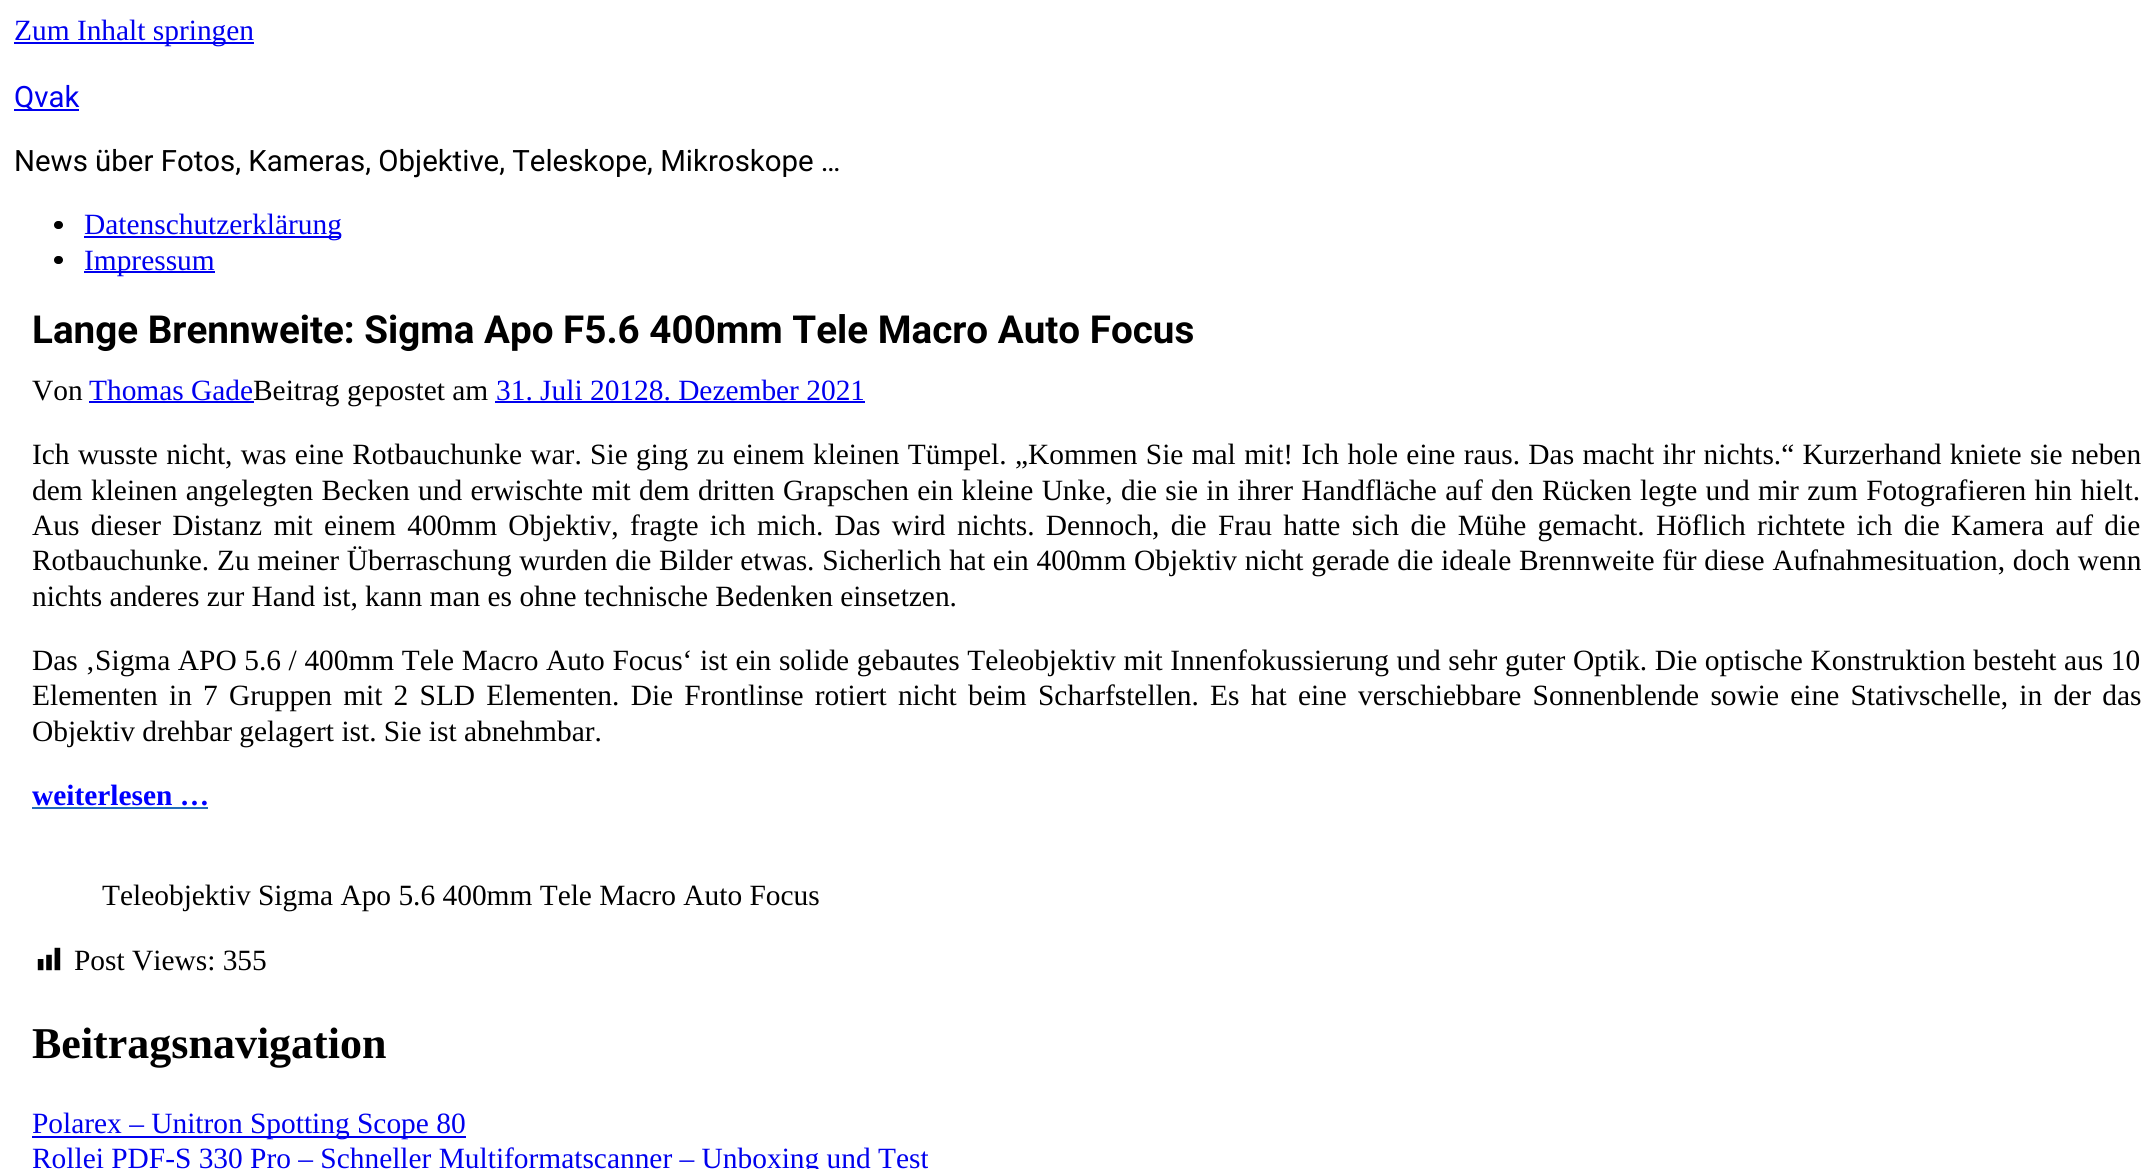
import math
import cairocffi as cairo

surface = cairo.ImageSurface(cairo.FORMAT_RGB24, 2153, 1169)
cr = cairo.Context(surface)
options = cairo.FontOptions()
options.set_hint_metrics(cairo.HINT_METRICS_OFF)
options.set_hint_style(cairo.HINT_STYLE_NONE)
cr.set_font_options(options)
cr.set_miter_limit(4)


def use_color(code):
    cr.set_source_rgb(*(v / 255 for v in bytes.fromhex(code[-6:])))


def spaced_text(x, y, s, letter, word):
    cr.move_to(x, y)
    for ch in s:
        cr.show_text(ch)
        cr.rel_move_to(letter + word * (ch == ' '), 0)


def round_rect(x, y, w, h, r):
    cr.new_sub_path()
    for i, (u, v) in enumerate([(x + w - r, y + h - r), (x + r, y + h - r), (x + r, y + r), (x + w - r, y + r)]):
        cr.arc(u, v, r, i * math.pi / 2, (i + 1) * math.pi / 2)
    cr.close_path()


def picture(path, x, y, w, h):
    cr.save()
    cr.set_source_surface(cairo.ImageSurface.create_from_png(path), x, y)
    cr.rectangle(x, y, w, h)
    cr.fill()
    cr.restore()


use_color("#ffffff")
cr.paint()
use_color("#0000ee")
cr.rectangle(14, 42, 240, 2)
cr.fill()
cr.select_font_face("Liberation Serif")
cr.set_font_size(29.4)
cr.move_to(14, 40)
cr.show_text("Zum Inhalt springen")
cr.rectangle(14, 109, 65, 2)
cr.fill()
cr.select_font_face("Roboto")
cr.move_to(14, 107)
cr.show_text("Qvak")
use_color("#000000")
cr.move_to(14, 171)
cr.show_text("News über Fotos, Kameras, Objektive, Teleskope, Mikroskope …")
round_rect(54, 221, 9, 8, 4)
cr.fill()
use_color("#0000ee")
cr.rectangle(84, 236, 257, 2)
cr.fill()
cr.select_font_face("Liberation Serif")
cr.move_to(84, 234)
cr.show_text("Datenschutzerklärung")
use_color("#000000")
round_rect(54, 256, 9, 8, 4)
cr.fill()
use_color("#0000ee")
cr.rectangle(84, 271, 131, 2)
cr.fill()
cr.move_to(84, 270)
cr.show_text("Impressum")
cr.select_font_face("Roboto", cairo.FONT_SLANT_NORMAL, cairo.FONT_WEIGHT_BOLD)
cr.set_font_size(38.6)
use_color("#000000")
cr.move_to(32, 343)
cr.show_text("Lange Brennweite: Sigma Apo F5.6 400mm Tele Macro Auto Focus")
cr.select_font_face("Liberation Serif")
cr.set_font_size(29.4)
cr.move_to(32, 400)
cr.show_text("Von")
use_color("#0000ee")
cr.move_to(89, 400)
cr.show_text("Thomas Gade")
cr.rectangle(89, 401, 165, 2)
cr.fill()
use_color("#000000")
cr.move_to(253, 400)
cr.show_text("Beitrag gepostet am")
use_color("#0000ee")
cr.rectangle(495, 401, 370, 2)
cr.fill()
cr.move_to(496, 400)
cr.show_text("31. Juli 20128. Dezember 2021")
use_color("#000000")
spaced_text(32, 464, "Ich wusste nicht, was eine Rotbauchunke war. Sie ging zu einem kleinen Tümpel. „Kommen Sie mal mit! Ich hole eine raus. Das macht ihr nichts.“ Kurzerhand kniete sie neben", 0, 1)
spaced_text(32, 500, "dem kleinen angelegten Becken und erwischte mit dem dritten Grapschen ein kleine Unke, die sie in ihrer Handfläche auf den Rücken legte und mir zum Fotografieren hin hielt.", 0, 1)
spaced_text(32, 535, "Aus dieser Distanz mit einem 400mm Objektiv, fragte ich mich. Das wird nichts. Dennoch, die Frau hatte sich die Mühe gemacht. Höflich richtete ich die Kamera auf die", 0, 4)
spaced_text(32, 570, "Rotbauchunke. Zu meiner Überraschung wurden die Bilder etwas. Sicherlich hat ein 400mm Objektiv nicht gerade die ideale Brennweite für diese Aufnahmesituation, doch wenn", 0, 0.4)
cr.move_to(32, 606)
cr.show_text("nichts anderes zur Hand ist, kann man es ohne technische Bedenken einsetzen.")
spaced_text(32, 670, "Das ‚Sigma APO 5.6 / 400mm Tele Macro Auto Focus‘ ist ein solide gebautes Teleobjektiv mit Innenfokussierung und sehr guter Optik. Die optische Konstruktion besteht aus 10", 0, 0.25)
spaced_text(32, 705, "Elementen in 7 Gruppen mit 2 SLD Elementen. Die Frontlinse rotiert nicht beim Scharfstellen. Es hat eine verschiebbare Sonnenblende sowie eine Stativschelle, in der das", 0, 3.9)
cr.move_to(32, 741)
cr.show_text("Objektiv drehbar gelagert ist. Sie ist abnehmbar.")
cr.select_font_face("Liberation Serif", cairo.FONT_SLANT_NORMAL, cairo.FONT_WEIGHT_BOLD)
use_color("#0000ff")
cr.move_to(32, 805)
cr.show_text("weiterlesen …")
use_color("#216bba")
cr.rectangle(32, 807, 176, 2)
cr.fill()
cr.select_font_face("Liberation Serif")
use_color("#000000")
cr.move_to(102, 905)
cr.show_text("Teleobjektiv Sigma Apo 5.6 400mm Tele Macro Auto Focus")
picture("img1.png", 37, 947, 24, 24)
cr.move_to(74, 970)
cr.show_text("Post Views: 355")
cr.select_font_face("Liberation Serif", cairo.FONT_SLANT_NORMAL, cairo.FONT_WEIGHT_BOLD)
cr.set_font_size(44)
cr.move_to(32, 1058)
cr.show_text("Beitragsnavigation")
use_color("#0000ee")
cr.rectangle(32, 1136, 434, 2)
cr.fill()
cr.select_font_face("Liberation Serif")
cr.set_font_size(29.4)
cr.move_to(32, 1133)
cr.show_text("Polarex – Unitron Spotting Scope 80")
cr.move_to(32, 1168)
cr.show_text("Rollei PDF-S 330 Pro – Schneller Multiformatscanner – Unboxing und Test")
surface.write_to_png("result.png")
